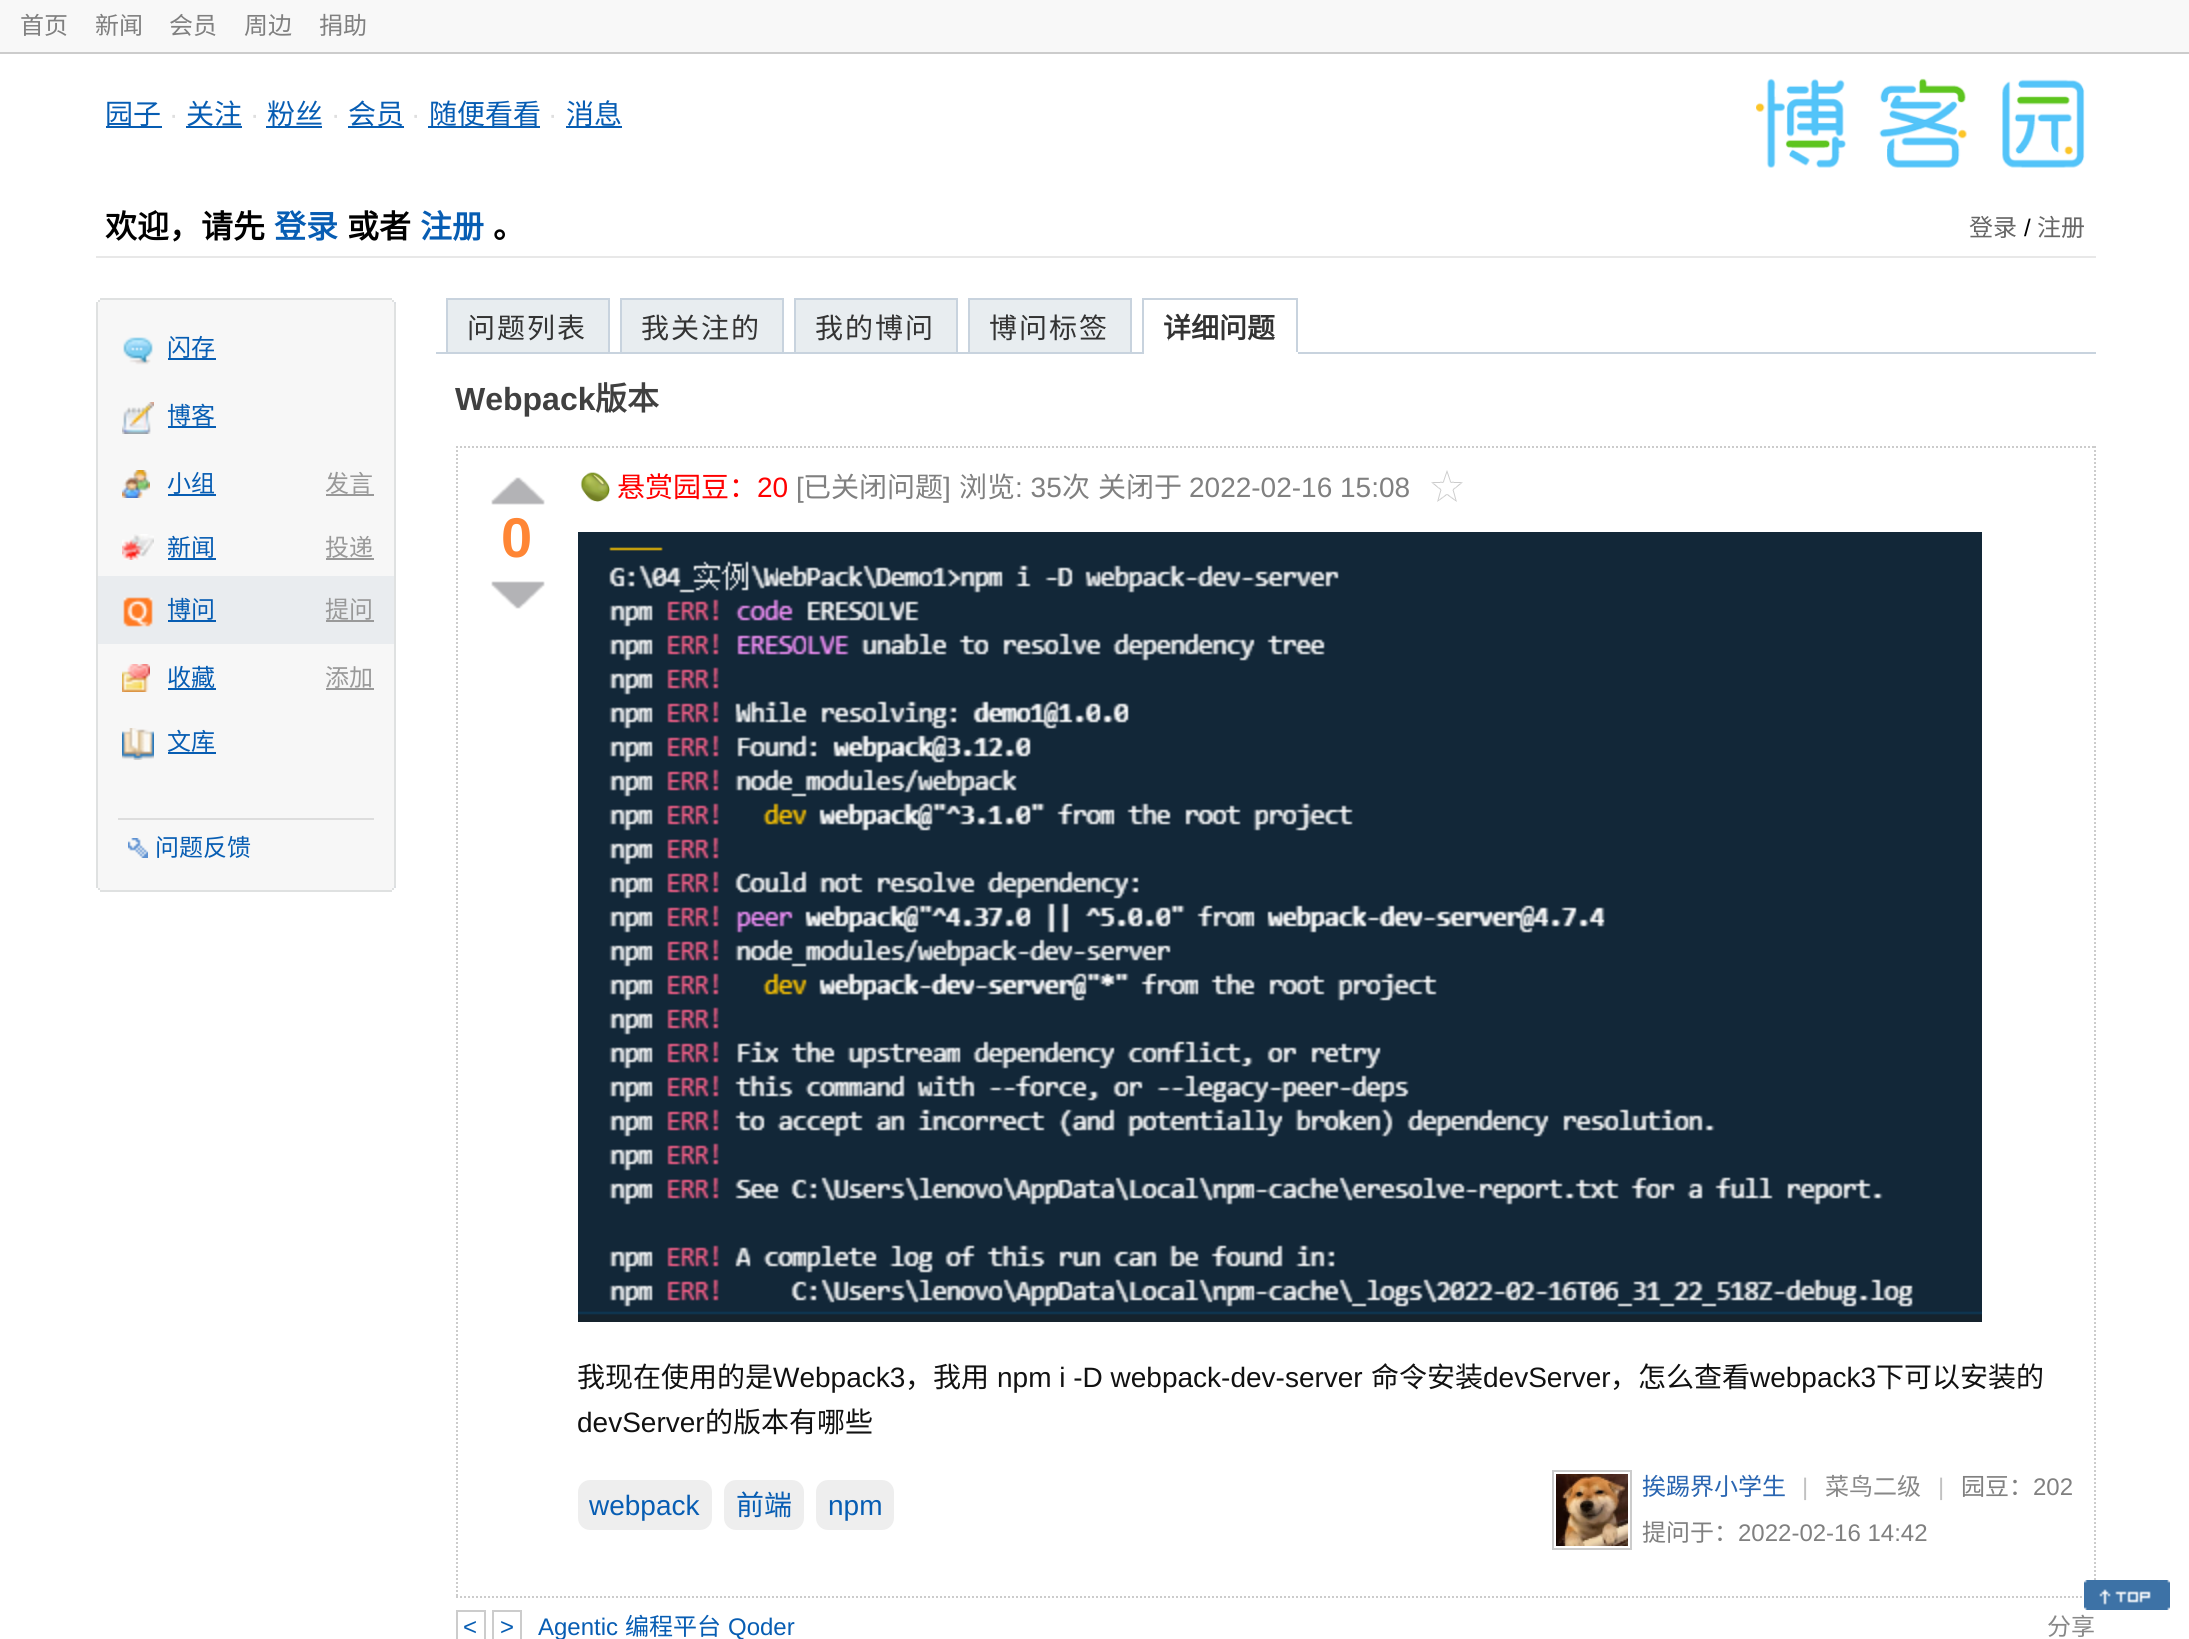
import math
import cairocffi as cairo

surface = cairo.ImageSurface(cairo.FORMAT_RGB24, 2189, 1639)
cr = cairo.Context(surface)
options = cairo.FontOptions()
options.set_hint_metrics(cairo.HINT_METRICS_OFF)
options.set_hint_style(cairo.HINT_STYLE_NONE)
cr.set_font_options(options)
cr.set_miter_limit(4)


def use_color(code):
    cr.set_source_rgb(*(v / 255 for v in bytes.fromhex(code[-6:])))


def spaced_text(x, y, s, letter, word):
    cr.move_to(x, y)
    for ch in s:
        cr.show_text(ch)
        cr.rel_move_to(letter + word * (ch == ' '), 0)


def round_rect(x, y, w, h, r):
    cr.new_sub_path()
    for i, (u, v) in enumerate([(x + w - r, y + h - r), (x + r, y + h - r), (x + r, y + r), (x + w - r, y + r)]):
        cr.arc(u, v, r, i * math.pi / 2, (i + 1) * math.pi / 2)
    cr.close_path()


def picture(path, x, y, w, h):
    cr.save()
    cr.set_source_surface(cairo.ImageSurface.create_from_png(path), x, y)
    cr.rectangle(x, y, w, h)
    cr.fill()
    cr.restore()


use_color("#ffffff")
cr.paint()
use_color("#f8f8f8")
cr.rectangle(0, 0, 2189, 52)
cr.fill()
use_color("#cccccc")
cr.rectangle(0, 52, 2189, 2)
cr.fill()
cr.select_font_face("Noto Sans CJK SC")
cr.set_font_size(24)
use_color("#808080")
cr.move_to(20, 34)
cr.show_text("首页")
cr.move_to(95, 34)
cr.show_text("新闻")
cr.move_to(169, 34)
cr.show_text("会员")
cr.move_to(244, 34)
cr.show_text("周边")
cr.move_to(319, 34)
cr.show_text("捐助")
use_color("#e8e8e8")
cr.rectangle(96, 256, 2000, 2)
cr.fill()
use_color("#075db3")
cr.rectangle(106, 126, 56, 2)
cr.fill()
cr.set_font_size(28)
cr.move_to(105, 124)
cr.show_text("园子")
cr.select_font_face("Liberation Sans")
use_color("#dfdfdf")
cr.move_to(169, 124)
cr.show_text("·")
use_color("#075db3")
cr.rectangle(186, 126, 56, 2)
cr.fill()
cr.select_font_face("Noto Sans CJK SC")
cr.move_to(186, 124)
cr.show_text("关注")
cr.select_font_face("Liberation Sans")
use_color("#dfdfdf")
cr.move_to(250, 124)
cr.show_text("·")
use_color("#075db3")
cr.rectangle(266, 126, 56, 2)
cr.fill()
cr.select_font_face("Noto Sans CJK SC")
cr.move_to(267, 124)
cr.show_text("粉丝")
cr.select_font_face("Liberation Sans")
use_color("#dfdfdf")
cr.move_to(331, 124)
cr.show_text("·")
use_color("#075db3")
cr.rectangle(348, 126, 56, 2)
cr.fill()
cr.select_font_face("Noto Sans CJK SC")
cr.move_to(348, 124)
cr.show_text("会员")
cr.select_font_face("Liberation Sans")
use_color("#dfdfdf")
cr.move_to(411, 124)
cr.show_text("·")
use_color("#075db3")
cr.rectangle(428, 126, 112, 2)
cr.fill()
cr.select_font_face("Noto Sans CJK SC")
cr.move_to(429, 124)
cr.show_text("随便看看")
cr.select_font_face("Liberation Sans")
use_color("#dfdfdf")
cr.move_to(548, 124)
cr.show_text("·")
use_color("#075db3")
cr.rectangle(566, 126, 56, 2)
cr.fill()
cr.select_font_face("Noto Sans CJK SC")
cr.move_to(566, 124)
cr.show_text("消息")
picture("img1.png", 1756, 78, 329, 90)
cr.select_font_face("Noto Sans CJK SC", cairo.FONT_SLANT_NORMAL, cairo.FONT_WEIGHT_BOLD)
cr.set_font_size(32)
use_color("#000000")
cr.move_to(105, 238)
cr.show_text("欢迎，请先")
use_color("#075db3")
cr.move_to(274, 238)
cr.show_text("登录")
use_color("#000000")
cr.move_to(347, 238)
cr.show_text("或者")
use_color("#075db3")
cr.move_to(420, 238)
cr.show_text("注册")
use_color("#000000")
cr.move_to(493, 238)
cr.show_text("。")
cr.select_font_face("Noto Sans CJK SC")
cr.set_font_size(24)
use_color("#666666")
cr.move_to(1969, 236)
cr.show_text("登录")
cr.select_font_face("Liberation Sans")
use_color("#000000")
cr.move_to(2024, 236)
cr.show_text("/")
cr.select_font_face("Noto Sans CJK SC")
use_color("#666666")
cr.move_to(2037, 236)
cr.show_text("注册")
use_color("#dfe1e1")
cr.rectangle(100, 298, 292, 2)
cr.fill()
use_color("#f7f7f7")
cr.rectangle(98, 300, 296, 2)
cr.fill()
use_color("#dfe1e1")
cr.rectangle(392, 300, 2, 2)
cr.fill()
cr.rectangle(98, 300, 2, 2)
cr.fill()
use_color("#f7f7f7")
cr.rectangle(96, 302, 300, 2)
cr.fill()
use_color("#dbdee2")
cr.rectangle(394, 302, 2, 2)
cr.fill()
use_color("#dfe1e1")
cr.rectangle(96, 302, 2, 584)
cr.fill()
use_color("#f7f7f7")
cr.rectangle(98, 304, 296, 582)
cr.fill()
use_color("#dfe1e1")
cr.rectangle(394, 304, 2, 582)
cr.fill()
picture("img2.png", 123, 337, 30, 28)
use_color("#075db3")
cr.move_to(167, 356)
cr.show_text("闪存")
cr.rectangle(168, 358, 48, 2)
cr.fill()
picture("img3.png", 122, 402, 32, 32)
cr.move_to(167, 424)
cr.show_text("博客")
cr.rectangle(168, 426, 48, 2)
cr.fill()
picture("img4.png", 122, 470, 28, 28)
cr.move_to(167, 492)
cr.show_text("小组")
cr.rectangle(168, 494, 48, 2)
cr.fill()
use_color("#999999")
cr.move_to(325, 492)
cr.show_text("发言")
cr.rectangle(326, 494, 48, 2)
cr.fill()
picture("img5.png", 122, 534, 32, 26)
use_color("#075db3")
cr.move_to(167, 556)
cr.show_text("新闻")
cr.rectangle(168, 558, 48, 2)
cr.fill()
use_color("#999999")
cr.move_to(325, 556)
cr.show_text("投递")
cr.rectangle(326, 558, 48, 2)
cr.fill()
use_color("#e9ecef")
cr.rectangle(98, 576, 296, 68)
cr.fill()
picture("img6.png", 123, 597, 30, 30)
use_color("#075db3")
cr.move_to(167, 618)
cr.show_text("博问")
cr.rectangle(168, 620, 48, 2)
cr.fill()
use_color("#999999")
cr.move_to(325, 618)
cr.show_text("提问")
cr.rectangle(326, 620, 48, 2)
cr.fill()
picture("img7.png", 122, 664, 28, 28)
use_color("#075db3")
cr.move_to(167, 686)
cr.show_text("收藏")
cr.rectangle(168, 688, 48, 2)
cr.fill()
use_color("#999999")
cr.move_to(325, 686)
cr.show_text("添加")
cr.rectangle(326, 688, 48, 2)
cr.fill()
picture("img8.png", 122, 728, 32, 32)
use_color("#075db3")
cr.move_to(167, 750)
cr.show_text("文库")
cr.rectangle(168, 752, 48, 2)
cr.fill()
use_color("#dddddd")
cr.rectangle(118, 818, 256, 2)
cr.fill()
picture("img9.png", 128, 838, 20, 20)
use_color("#075db3")
cr.move_to(155, 856)
cr.show_text("问题反馈")
use_color("#f7f7f7")
cr.rectangle(96, 886, 300, 2)
cr.fill()
use_color("#dbdee2")
cr.rectangle(394, 886, 2, 2)
cr.fill()
use_color("#dfe1e1")
cr.rectangle(96, 886, 2, 2)
cr.fill()
use_color("#f7f7f7")
cr.rectangle(98, 888, 296, 2)
cr.fill()
use_color("#dfe1e1")
cr.rectangle(392, 888, 2, 2)
cr.fill()
cr.rectangle(98, 888, 2, 2)
cr.fill()
cr.rectangle(100, 890, 292, 2)
cr.fill()
use_color("#c8d3de")
cr.rectangle(436, 352, 1660, 2)
cr.fill()
use_color("#e8edf0")
cr.rectangle(447, 299, 162, 54)
cr.fill_preserve()
use_color("#c8d3de")
cr.stroke()
cr.set_font_size(28)
use_color("#333333")
spaced_text(467, 338, "问题列表", 2, 0)
use_color("#e8edf0")
cr.rectangle(621, 299, 162, 54)
cr.fill_preserve()
use_color("#c8d3de")
cr.stroke()
use_color("#333333")
spaced_text(641, 338, "我关注的", 2, 0)
use_color("#e8edf0")
cr.rectangle(795, 299, 162, 54)
cr.fill_preserve()
use_color("#c8d3de")
cr.stroke()
use_color("#333333")
spaced_text(815, 338, "我的博问", 2, 0)
use_color("#e8edf0")
cr.rectangle(969, 299, 162, 54)
cr.fill_preserve()
use_color("#c8d3de")
cr.stroke()
use_color("#333333")
spaced_text(989, 338, "博问标签", 2, 0)
use_color("#c8d3de")
cr.rectangle(1142, 298, 156, 2)
cr.fill()
cr.rectangle(1296, 298, 2, 56)
cr.fill()
use_color("#ffffff")
cr.rectangle(1142, 352, 156, 2)
cr.fill()
use_color("#c8d3de")
cr.rectangle(1142, 298, 2, 56)
cr.fill()
cr.select_font_face("Noto Sans CJK SC", cairo.FONT_SLANT_NORMAL, cairo.FONT_WEIGHT_BOLD)
use_color("#333333")
cr.move_to(1163, 338)
cr.show_text("详细问题")
cr.select_font_face("Liberation Sans", cairo.FONT_SLANT_NORMAL, cairo.FONT_WEIGHT_BOLD)
cr.set_font_size(32)
use_color("#404040")
cr.move_to(455, 410)
cr.show_text("Webpack")
cr.select_font_face("Noto Sans CJK SC", cairo.FONT_SLANT_NORMAL, cairo.FONT_WEIGHT_BOLD)
cr.move_to(595, 410)
cr.show_text("版本")
cr.new_path()
cr.move_to(456, 447)
cr.line_to(2096, 447)
use_color("#cccccc")
cr.set_dash([2, 2])
cr.stroke()
cr.new_path()
cr.move_to(2095, 446)
cr.line_to(2095, 1598)
cr.stroke()
cr.new_path()
cr.move_to(456, 1597)
cr.line_to(2096, 1597)
cr.stroke()
cr.new_path()
cr.move_to(457, 446)
cr.line_to(457, 1598)
cr.stroke()
picture("img10.png", 491, 477, 54, 28)
cr.select_font_face("Liberation Sans", cairo.FONT_SLANT_NORMAL, cairo.FONT_WEIGHT_BOLD)
cr.set_font_size(56)
use_color("#ff8635")
cr.move_to(501, 557)
cr.show_text("0")
picture("img11.png", 491, 581, 54, 28)
picture("img12.png", 580, 472, 30, 30)
cr.select_font_face("Noto Sans CJK SC")
cr.set_font_size(28)
use_color("#ff0000")
cr.move_to(617, 497)
cr.show_text("悬赏园豆：")
cr.select_font_face("Liberation Sans")
cr.move_to(757, 497)
cr.show_text("20")
use_color("#808080")
cr.move_to(796, 497)
cr.show_text("[")
cr.select_font_face("Noto Sans CJK SC")
cr.move_to(803, 497)
cr.show_text("已关闭问题")
cr.select_font_face("Liberation Sans")
cr.move_to(943, 497)
cr.show_text("]")
cr.select_font_face("Noto Sans CJK SC")
cr.move_to(959, 497)
cr.show_text("浏览")
cr.select_font_face("Liberation Sans")
cr.move_to(1015, 497)
cr.show_text(": 35")
cr.select_font_face("Noto Sans CJK SC")
cr.move_to(1062, 497)
cr.show_text("次")
cr.move_to(1098, 497)
cr.show_text("关闭于")
cr.select_font_face("Liberation Sans")
cr.move_to(1189, 497)
cr.show_text("2022-02-16 15:08")
picture("img13.png", 1431, 470, 32, 32)
picture("img14.png", 578, 532, 1404, 790)
cr.select_font_face("Noto Sans CJK SC")
use_color("#111111")
cr.move_to(577, 1387)
cr.show_text("我现在使用的是")
cr.select_font_face("Liberation Sans")
cr.move_to(773, 1387)
cr.show_text("Webpack3")
cr.select_font_face("Noto Sans CJK SC")
cr.move_to(905, 1387)
cr.show_text("，我用")
cr.select_font_face("Liberation Sans")
cr.move_to(997, 1387)
cr.show_text("npm i -D webpack-dev-server")
cr.select_font_face("Noto Sans CJK SC")
cr.move_to(1371, 1387)
cr.show_text("命令安装")
cr.select_font_face("Liberation Sans")
cr.move_to(1483, 1387)
cr.show_text("devServer")
cr.select_font_face("Noto Sans CJK SC")
cr.move_to(1610, 1387)
cr.show_text("，怎么查看")
cr.select_font_face("Liberation Sans")
cr.move_to(1750, 1387)
cr.show_text("webpack3")
cr.select_font_face("Noto Sans CJK SC")
cr.move_to(1876, 1387)
cr.show_text("下可以安装的")
cr.select_font_face("Liberation Sans")
cr.move_to(577, 1432)
cr.show_text("devServer")
cr.select_font_face("Noto Sans CJK SC")
cr.move_to(705, 1432)
cr.show_text("的版本有哪些")
use_color("#eeeeee")
round_rect(578, 1480, 134, 50, 12)
cr.fill()
cr.select_font_face("Liberation Sans")
use_color("#075db3")
cr.move_to(589, 1515)
cr.show_text("webpack")
use_color("#eeeeee")
round_rect(724, 1480, 80, 50, 12)
cr.fill()
cr.select_font_face("Noto Sans CJK SC")
use_color("#075db3")
cr.move_to(736, 1515)
cr.show_text("前端")
use_color("#eeeeee")
round_rect(816, 1480, 78, 50, 12)
cr.fill()
cr.select_font_face("Liberation Sans")
use_color("#075db3")
cr.move_to(828, 1515)
cr.show_text("npm")
cr.rectangle(1553, 1471, 78, 78)
use_color("#cccccc")
cr.set_dash([])
cr.stroke()
picture("img15.png", 1556, 1474, 72, 72)
cr.select_font_face("Noto Sans CJK SC")
cr.set_font_size(24)
use_color("#2965b1")
cr.move_to(1642, 1495)
cr.show_text("挨踢界小学生")
cr.select_font_face("Liberation Sans")
use_color("#c1c1c1")
cr.move_to(1802, 1495)
cr.show_text("|")
cr.select_font_face("Noto Sans CJK SC")
use_color("#888888")
cr.move_to(1825, 1495)
cr.show_text("菜鸟二级")
cr.select_font_face("Liberation Sans")
use_color("#c1c1c1")
cr.move_to(1938, 1495)
cr.show_text("|")
cr.select_font_face("Noto Sans CJK SC")
use_color("#808080")
cr.move_to(1961, 1495)
cr.show_text("园豆：")
cr.select_font_face("Liberation Sans")
cr.move_to(2033, 1495)
cr.show_text("202")
cr.select_font_face("Noto Sans CJK SC")
cr.move_to(1642, 1541)
cr.show_text("提问于：")
cr.select_font_face("Liberation Sans")
cr.move_to(1738, 1541)
cr.show_text("2022-02-16 14:42")
cr.rectangle(457, 1611, 28, 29)
use_color("#cccccc")
cr.stroke()
use_color("#075db3")
cr.move_to(463, 1635)
cr.show_text("<")
cr.rectangle(493, 1611, 28, 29)
use_color("#cccccc")
cr.stroke()
use_color("#075db3")
cr.move_to(500, 1635)
cr.show_text(">")
cr.move_to(538, 1635)
cr.show_text("Agentic")
cr.select_font_face("Noto Sans CJK SC")
cr.move_to(625, 1635)
cr.show_text("编程平台")
cr.select_font_face("Liberation Sans")
cr.move_to(728, 1635)
cr.show_text("Qoder")
cr.select_font_face("Noto Sans CJK SC")
use_color("#888888")
cr.move_to(2047, 1635)
cr.show_text("分享")
picture("img16.png", 2084, 1580, 86, 30)
surface.write_to_png("result.png")
